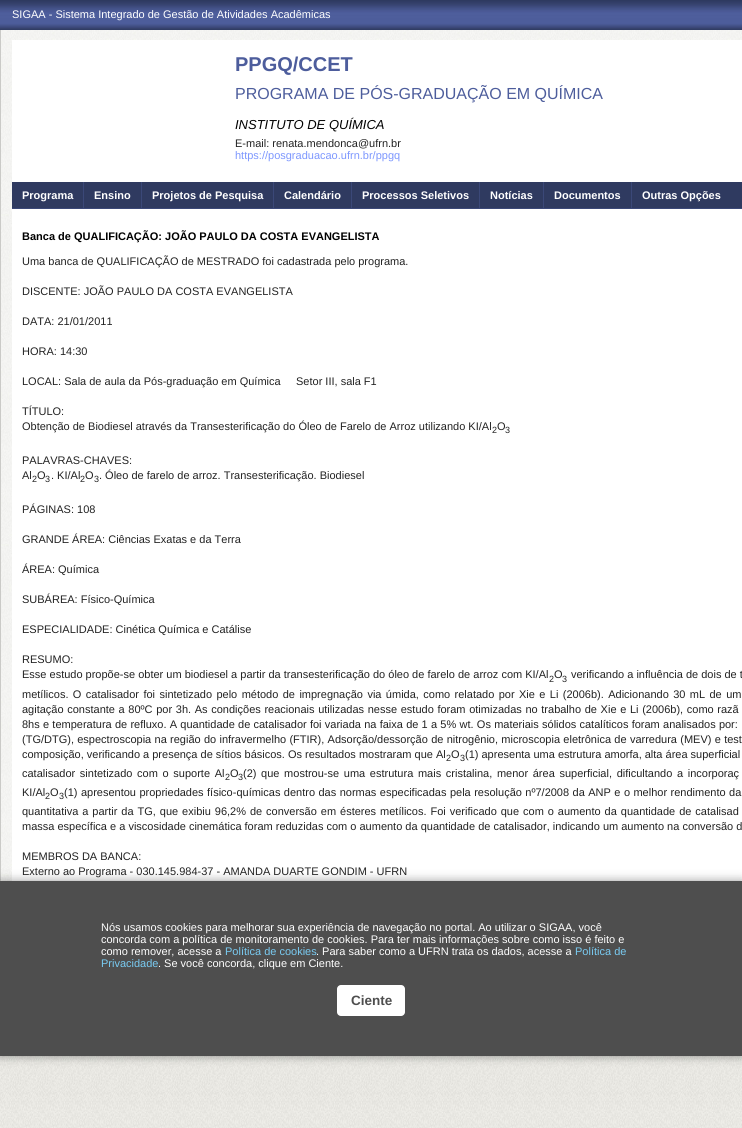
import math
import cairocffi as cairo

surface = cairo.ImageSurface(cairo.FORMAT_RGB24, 742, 1128)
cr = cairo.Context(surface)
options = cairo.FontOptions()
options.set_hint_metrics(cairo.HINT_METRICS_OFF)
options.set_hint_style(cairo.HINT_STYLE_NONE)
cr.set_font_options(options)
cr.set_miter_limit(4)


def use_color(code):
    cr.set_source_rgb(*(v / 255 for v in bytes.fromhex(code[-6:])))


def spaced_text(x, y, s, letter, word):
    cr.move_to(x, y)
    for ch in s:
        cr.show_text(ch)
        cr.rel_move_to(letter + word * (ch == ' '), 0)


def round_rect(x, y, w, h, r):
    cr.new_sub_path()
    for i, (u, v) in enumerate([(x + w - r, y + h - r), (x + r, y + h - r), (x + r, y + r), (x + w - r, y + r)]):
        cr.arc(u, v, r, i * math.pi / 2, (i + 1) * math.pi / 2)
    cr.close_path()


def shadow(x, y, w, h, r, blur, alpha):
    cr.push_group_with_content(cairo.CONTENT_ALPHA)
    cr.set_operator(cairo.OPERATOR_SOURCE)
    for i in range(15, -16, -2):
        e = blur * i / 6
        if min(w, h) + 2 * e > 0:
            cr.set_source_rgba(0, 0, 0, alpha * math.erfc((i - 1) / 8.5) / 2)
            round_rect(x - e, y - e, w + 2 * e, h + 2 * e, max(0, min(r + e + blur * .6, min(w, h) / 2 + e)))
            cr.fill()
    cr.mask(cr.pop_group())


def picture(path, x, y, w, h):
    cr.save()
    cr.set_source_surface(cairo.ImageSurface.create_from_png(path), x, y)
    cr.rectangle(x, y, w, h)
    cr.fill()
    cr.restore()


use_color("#ffffff")
cr.paint()
picture("img1.png", 0, 1056, 742, 72)
picture("img2.png", 0, 0, 742, 30)
cr.select_font_face("Liberation Sans")
cr.set_font_size(11)
use_color("#ffffff")
cr.move_to(12, 18)
cr.show_text("SIGAA - Sistema Integrado de Gestão de Atividades Acadêmicas")
picture("img3.png", 1, 30, 741, 851)
use_color("#cacac7")
cr.rectangle(0, 30, 1, 851)
cr.fill()
use_color("#ffffff")
cr.rectangle(12, 40, 730, 841)
cr.fill()
cr.select_font_face("Liberation Sans", cairo.FONT_SLANT_NORMAL, cairo.FONT_WEIGHT_BOLD)
cr.set_font_size(20)
use_color("#4d5d9c")
cr.move_to(235, 71)
cr.show_text("PPGQ/CCET")
cr.select_font_face("Liberation Sans")
cr.set_font_size(16)
cr.move_to(235, 99)
cr.show_text("PROGRAMA DE PÓS-GRADUAÇÃO EM QUÍMICA")
cr.select_font_face("Liberation Sans", cairo.FONT_SLANT_ITALIC)
cr.set_font_size(13)
use_color("#000000")
cr.move_to(235, 129)
cr.show_text("INSTITUTO DE QUÍMICA")
cr.select_font_face("Liberation Sans")
cr.set_font_size(11)
use_color("#222222")
cr.move_to(235, 147)
cr.show_text("E-mail: renata.mendonca@ufrn.br")
use_color("#7d97fe")
cr.move_to(235, 159)
cr.show_text("https://posgraduacao.ufrn.br/ppgq")
use_color("#2f3a60")
cr.rectangle(12, 182, 730, 26)
cr.fill()
use_color("#3b4878")
cr.rectangle(12, 208, 730, 1)
cr.fill()
cr.select_font_face("Liberation Sans", cairo.FONT_SLANT_NORMAL, cairo.FONT_WEIGHT_BOLD)
use_color("#ffffff")
cr.move_to(22, 199)
cr.show_text("Programa")
use_color("#3b4878")
cr.rectangle(83, 182, 1, 27)
cr.fill()
use_color("#ffffff")
cr.move_to(94, 199)
cr.show_text("Ensino")
use_color("#3b4878")
cr.rectangle(141, 182, 1, 27)
cr.fill()
use_color("#ffffff")
cr.move_to(152, 199)
cr.show_text("Projetos de Pesquisa")
use_color("#3b4878")
cr.rectangle(273, 182, 1, 27)
cr.fill()
use_color("#ffffff")
cr.move_to(284, 199)
cr.show_text("Calendário")
use_color("#3b4878")
cr.rectangle(351, 182, 1, 27)
cr.fill()
use_color("#ffffff")
cr.move_to(362, 199)
cr.show_text("Processos Seletivos")
use_color("#3b4878")
cr.rectangle(479, 182, 1, 27)
cr.fill()
use_color("#ffffff")
cr.move_to(490, 199)
cr.show_text("Notícias")
use_color("#3b4878")
cr.rectangle(543, 182, 1, 27)
cr.fill()
use_color("#ffffff")
cr.move_to(554, 199)
cr.show_text("Documentos")
use_color("#3b4878")
cr.rectangle(631, 182, 1, 27)
cr.fill()
use_color("#ffffff")
cr.move_to(642, 199)
cr.show_text("Outras Opções")
use_color("#000000")
cr.move_to(22, 240)
cr.show_text("Banca de QUALIFICAÇÃO: JOÃO PAULO DA COSTA EVANGELISTA")
cr.select_font_face("Liberation Sans")
use_color("#222222")
cr.move_to(22, 265)
cr.show_text("Uma banca de QUALIFICAÇÃO de MESTRADO foi cadastrada pelo programa.")
cr.move_to(22, 295)
cr.show_text("DISCENTE: JOÃO PAULO DA COSTA EVANGELISTA")
cr.move_to(22, 325)
cr.show_text("DATA: 21/01/2011")
cr.move_to(22, 355)
cr.show_text("HORA: 14:30")
cr.move_to(22, 385)
cr.show_text("LOCAL: Sala de aula da Pós-graduação em Química")
cr.move_to(296, 385)
cr.show_text("Setor III, sala F1")
cr.move_to(22, 415)
cr.show_text("TÍTULO:")
cr.move_to(22, 430)
cr.show_text("Obtenção de Biodiesel através da Transesterificação do Óleo de Farelo de Arroz utilizando KI/Al")
cr.set_font_size(9)
cr.move_to(492, 433)
cr.show_text("2")
cr.set_font_size(11)
cr.move_to(497, 430)
cr.show_text("O")
cr.set_font_size(9)
cr.move_to(505, 433)
cr.show_text("3")
cr.set_font_size(11)
cr.move_to(22, 464)
cr.show_text("PALAVRAS-CHAVES:")
cr.move_to(22, 479)
cr.show_text("Al")
cr.set_font_size(9)
cr.move_to(32, 482)
cr.show_text("2")
cr.set_font_size(11)
cr.move_to(37, 479)
cr.show_text("O")
cr.set_font_size(9)
cr.move_to(45, 482)
cr.show_text("3")
cr.set_font_size(11)
cr.move_to(51, 479)
cr.show_text(". KI/Al")
cr.set_font_size(9)
cr.move_to(80, 482)
cr.show_text("2")
cr.set_font_size(11)
cr.move_to(85, 479)
cr.show_text("O")
cr.set_font_size(9)
cr.move_to(94, 482)
cr.show_text("3")
cr.set_font_size(11)
cr.move_to(99, 479)
cr.show_text(". Óleo de farelo de arroz. Transesterificação. Biodiesel")
cr.move_to(22, 513)
cr.show_text("PÁGINAS: 108")
cr.move_to(22, 543)
cr.show_text("GRANDE ÁREA: Ciências Exatas e da Terra")
cr.move_to(22, 573)
cr.show_text("ÁREA: Química")
cr.move_to(22, 603)
cr.show_text("SUBÁREA: Físico-Química")
cr.move_to(22, 633)
cr.show_text("ESPECIALIDADE: Cinética Química e Catálise")
cr.move_to(22, 663)
cr.show_text("RESUMO:")
cr.move_to(22, 678)
cr.show_text("Esse estudo propõe-se obter um biodiesel a partir da transesterificação do óleo de farelo de arroz com KI/Al")
cr.set_font_size(9)
cr.move_to(549, 682)
cr.show_text("2")
cr.set_font_size(11)
cr.move_to(554, 678)
cr.show_text("O")
cr.set_font_size(9)
cr.move_to(562, 682)
cr.show_text("3")
cr.set_font_size(11)
cr.move_to(571, 678)
cr.show_text("verificando a influência de dois de t")
spaced_text(22, 698, "metílicos. O catalisador foi sintetizado pelo método de impregnação via úmida, como relatado por Xie e Li (2006b). Adicionando 30 mL de um", 0, 1.35)
spaced_text(22, 713, "agitação constante a 80ºC por 3h. As condições reacionais utilizadas nesse estudo foram otimizadas no trabalho de Xie e Li (2006b), como razã", 0, 0.6)
spaced_text(22, 728, "8hs e temperatura de refluxo. A quantidade de catalisador foi variada na faixa de 1 a 5% wt. Os materiais sólidos catalíticos foram analisados por:", 0, 0.2)
spaced_text(22, 743, "(TG/DTG), espectroscopia na região do infravermelho (FTIR), Adsorção/dessorção de nitrogênio, microscopia eletrônica de varredura (MEV) e test", 0, 0.25)
cr.move_to(22, 758)
cr.show_text("composição, verificando a presença de sítios básicos. Os resultados mostraram que Al")
cr.set_font_size(9)
cr.move_to(446, 761)
cr.show_text("2")
cr.set_font_size(11)
cr.move_to(451, 758)
cr.show_text("O")
cr.set_font_size(9)
cr.move_to(460, 761)
cr.show_text("3")
cr.set_font_size(11)
cr.move_to(465, 758)
cr.show_text("(1) apresenta uma estrutura amorfa, alta área superficial")
spaced_text(22, 777, "catalisador sintetizado com o suporte Al", 0, 1.6)
cr.set_font_size(9)
cr.move_to(225, 780)
cr.show_text("2")
cr.set_font_size(11)
cr.move_to(230, 777)
cr.show_text("O")
cr.set_font_size(9)
cr.move_to(238, 780)
cr.show_text("3")
cr.set_font_size(11)
spaced_text(243, 777, "(2) que mostrou-se uma estrutura mais cristalina, menor área superficial, dificultando a incorporaç", 0, 1.6)
cr.move_to(22, 796)
cr.show_text("KI/Al")
cr.set_font_size(9)
cr.move_to(45, 799)
cr.show_text("2")
cr.set_font_size(11)
cr.move_to(50, 796)
cr.show_text("O")
cr.set_font_size(9)
cr.move_to(59, 799)
cr.show_text("3")
cr.set_font_size(11)
spaced_text(64, 796, "(1) apresentou propriedades físico-químicas dentro das normas especificadas pela resolução nº7/2008 da ANP e o melhor rendimento da", 0, 0.4)
spaced_text(22, 815, "quantitativa a partir da TG, que exibiu 96,2% de conversão em ésteres metílicos. Foi verificado que com o aumento da quantidade de catalisad", 0, 0.9)
cr.move_to(22, 830)
cr.show_text("massa específica e a viscosidade cinemática foram reduzidas com o aumento da quantidade de catalisador, indicando um aumento na conversão d")
cr.move_to(22, 860)
cr.show_text("MEMBROS DA BANCA:")
cr.move_to(22, 875)
cr.show_text("Externo ao Programa - 030.145.984-37 - AMANDA DUARTE GONDIM - UFRN")
use_color("#000000")
shadow(0, 881, 742, 175, 0, 5, 0.4)
use_color("#4e4e4e")
cr.rectangle(0, 881, 742, 175)
cr.fill()
use_color("#ffffff")
cr.move_to(101, 931)
cr.show_text("Nós usamos cookies para melhorar sua experiência de navegação no portal. Ao utilizar o SIGAA, você")
cr.move_to(101, 943)
cr.show_text("concorda com a política de monitoramento de cookies. Para ter mais informações sobre como isso é feito e")
cr.move_to(101, 955)
cr.show_text("como remover, acesse a")
use_color("#79cbf2")
cr.move_to(225, 955)
cr.show_text("Política de cookies")
use_color("#ffffff")
cr.move_to(316, 955)
cr.show_text(". Para saber como a UFRN trata os dados, acesse a")
use_color("#79cbf2")
cr.move_to(575, 955)
cr.show_text("Política de")
cr.move_to(101, 967)
cr.show_text("Privacidade")
use_color("#ffffff")
cr.move_to(158, 967)
cr.show_text(". Se você concorda, clique em Ciente.")
round_rect(337, 985, 68, 31, 4)
cr.fill()
cr.select_font_face("Liberation Sans", cairo.FONT_SLANT_NORMAL, cairo.FONT_WEIGHT_BOLD)
cr.set_font_size(13.5)
use_color("#4e4e4e")
cr.move_to(351, 1005)
cr.show_text("Ciente")
surface.write_to_png("result.png")
